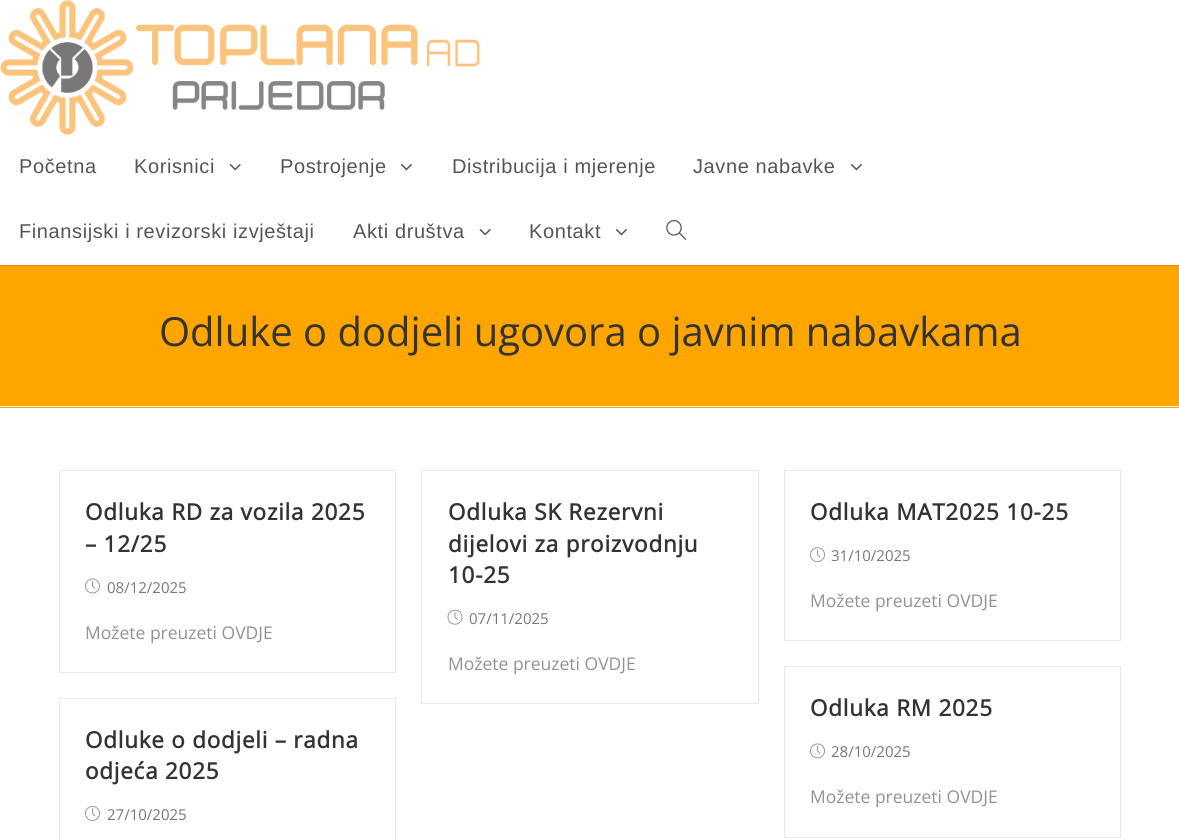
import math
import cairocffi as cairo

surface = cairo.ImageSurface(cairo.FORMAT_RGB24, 1179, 840)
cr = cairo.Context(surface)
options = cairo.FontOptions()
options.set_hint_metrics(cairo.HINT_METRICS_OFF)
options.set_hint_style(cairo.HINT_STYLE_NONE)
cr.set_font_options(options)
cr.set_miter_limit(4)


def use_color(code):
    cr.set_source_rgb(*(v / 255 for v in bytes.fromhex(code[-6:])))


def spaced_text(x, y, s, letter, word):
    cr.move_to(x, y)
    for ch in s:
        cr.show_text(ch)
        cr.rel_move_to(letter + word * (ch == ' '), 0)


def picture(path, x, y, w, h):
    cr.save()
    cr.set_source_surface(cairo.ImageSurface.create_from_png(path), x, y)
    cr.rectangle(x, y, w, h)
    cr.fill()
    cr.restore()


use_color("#ffffff")
cr.paint()
use_color("#ff8000")
cr.rectangle(0, 265, 1179, 1)
cr.fill()
picture("img1.png", 0, 0, 480, 135)
cr.select_font_face("Liberation Sans")
cr.set_font_size(20)
use_color("#555555")
spaced_text(19, 173, "Početna", 0.6, 0)
spaced_text(134, 173, "Korisnici", 0.6, 0)
picture("img2.png", 229, 164, 12, 7)
spaced_text(280, 173, "Postrojenje", 0.6, 0)
picture("img3.png", 400, 164, 12, 7)
spaced_text(452, 173, "Distribucija i mjerenje", 0.6, 0)
spaced_text(693, 173, "Javne nabavke", 0.6, 0)
picture("img3.png", 850, 164, 12, 7)
spaced_text(19, 238, "Finansijski i revizorski izvještaji", 0.6, 0)
spaced_text(353, 238, "Akti društva", 0.6, 0)
picture("img2.png", 479, 229, 12, 7)
spaced_text(529, 238, "Kontakt", 0.6, 0)
picture("img3.png", 615, 229, 12, 7)
picture("img4.png", 666, 220, 21, 20)
use_color("#ffa500")
cr.rectangle(0, 266, 1179, 142)
cr.fill()
use_color("#f1f1f1")
cr.rectangle(0, 406, 1179, 1)
cr.fill()
cr.select_font_face("Open Sans")
cr.set_font_size(40)
use_color("#333333")
cr.move_to(159, 346)
cr.show_text("Odluke o dodjeli ugovora o javnim nabavkama")
cr.rectangle(59.5, 470.5, 336, 202)
use_color("#e9e9e9")
cr.set_line_width(1)
cr.stroke()
cr.select_font_face("Open Sans", cairo.FONT_SLANT_NORMAL, cairo.FONT_WEIGHT_BOLD)
cr.set_font_size(22.5)
use_color("#333333")
spaced_text(85, 520, "Odluka RD za vozila 2025", 0.75, 0)
spaced_text(85, 552, "– 12/25", 0.75, 0)
picture("img5.png", 85, 578, 15, 16)
cr.select_font_face("Open Sans")
cr.set_font_size(15)
use_color("#777777")
cr.move_to(107, 593)
cr.show_text("08/12/2025")
cr.set_font_size(17.5)
use_color("#929292")
cr.move_to(85, 639)
cr.show_text("Možete preuzeti OVDJE")
cr.rectangle(421.5, 470.5, 337, 233)
use_color("#e9e9e9")
cr.stroke()
cr.select_font_face("Open Sans", cairo.FONT_SLANT_NORMAL, cairo.FONT_WEIGHT_BOLD)
cr.set_font_size(22.5)
use_color("#333333")
spaced_text(448, 520, "Odluka SK Rezervni", 0.75, 0)
spaced_text(448, 552, "dijelovi za proizvodnju", 0.75, 0)
spaced_text(448, 583, "10-25", 0.75, 0)
picture("img6.png", 447, 609, 16, 16)
cr.select_font_face("Open Sans")
cr.set_font_size(15)
use_color("#777777")
cr.move_to(469, 624)
cr.show_text("07/11/2025")
cr.set_font_size(17.5)
use_color("#929292")
cr.move_to(448, 670)
cr.show_text("Možete preuzeti OVDJE")
cr.rectangle(784.5, 470.5, 336, 170)
use_color("#e9e9e9")
cr.stroke()
cr.select_font_face("Open Sans", cairo.FONT_SLANT_NORMAL, cairo.FONT_WEIGHT_BOLD)
cr.set_font_size(22.5)
use_color("#333333")
spaced_text(810, 520, "Odluka MAT2025 10-25", 0.75, 0)
picture("img7.png", 810, 547, 15, 16)
cr.select_font_face("Open Sans")
cr.set_font_size(15)
use_color("#777777")
cr.move_to(831, 561)
cr.show_text("31/10/2025")
cr.set_font_size(17.5)
use_color("#929292")
cr.move_to(810, 607)
cr.show_text("Možete preuzeti OVDJE")
cr.rectangle(59.5, 698.5, 336, 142)
use_color("#e9e9e9")
cr.stroke()
cr.select_font_face("Open Sans", cairo.FONT_SLANT_NORMAL, cairo.FONT_WEIGHT_BOLD)
cr.set_font_size(22.5)
use_color("#333333")
spaced_text(85, 748, "Odluke o dodjeli – radna", 0.75, 0)
spaced_text(85, 779, "odjeća 2025", 0.75, 0)
picture("img8.png", 85, 806, 15, 15)
cr.select_font_face("Open Sans")
cr.set_font_size(15)
use_color("#777777")
cr.move_to(107, 820)
cr.show_text("27/10/2025")
cr.rectangle(784.5, 666.5, 336, 171)
use_color("#e9e9e9")
cr.stroke()
cr.select_font_face("Open Sans", cairo.FONT_SLANT_NORMAL, cairo.FONT_WEIGHT_BOLD)
cr.set_font_size(22.5)
use_color("#333333")
spaced_text(810, 716, "Odluka RM 2025", 0.75, 0)
picture("img5.png", 810, 743, 15, 16)
cr.select_font_face("Open Sans")
cr.set_font_size(15)
use_color("#777777")
cr.move_to(831, 757)
cr.show_text("28/10/2025")
cr.set_font_size(17.5)
use_color("#929292")
cr.move_to(810, 803)
cr.show_text("Možete preuzeti OVDJE")
surface.write_to_png("result.png")
